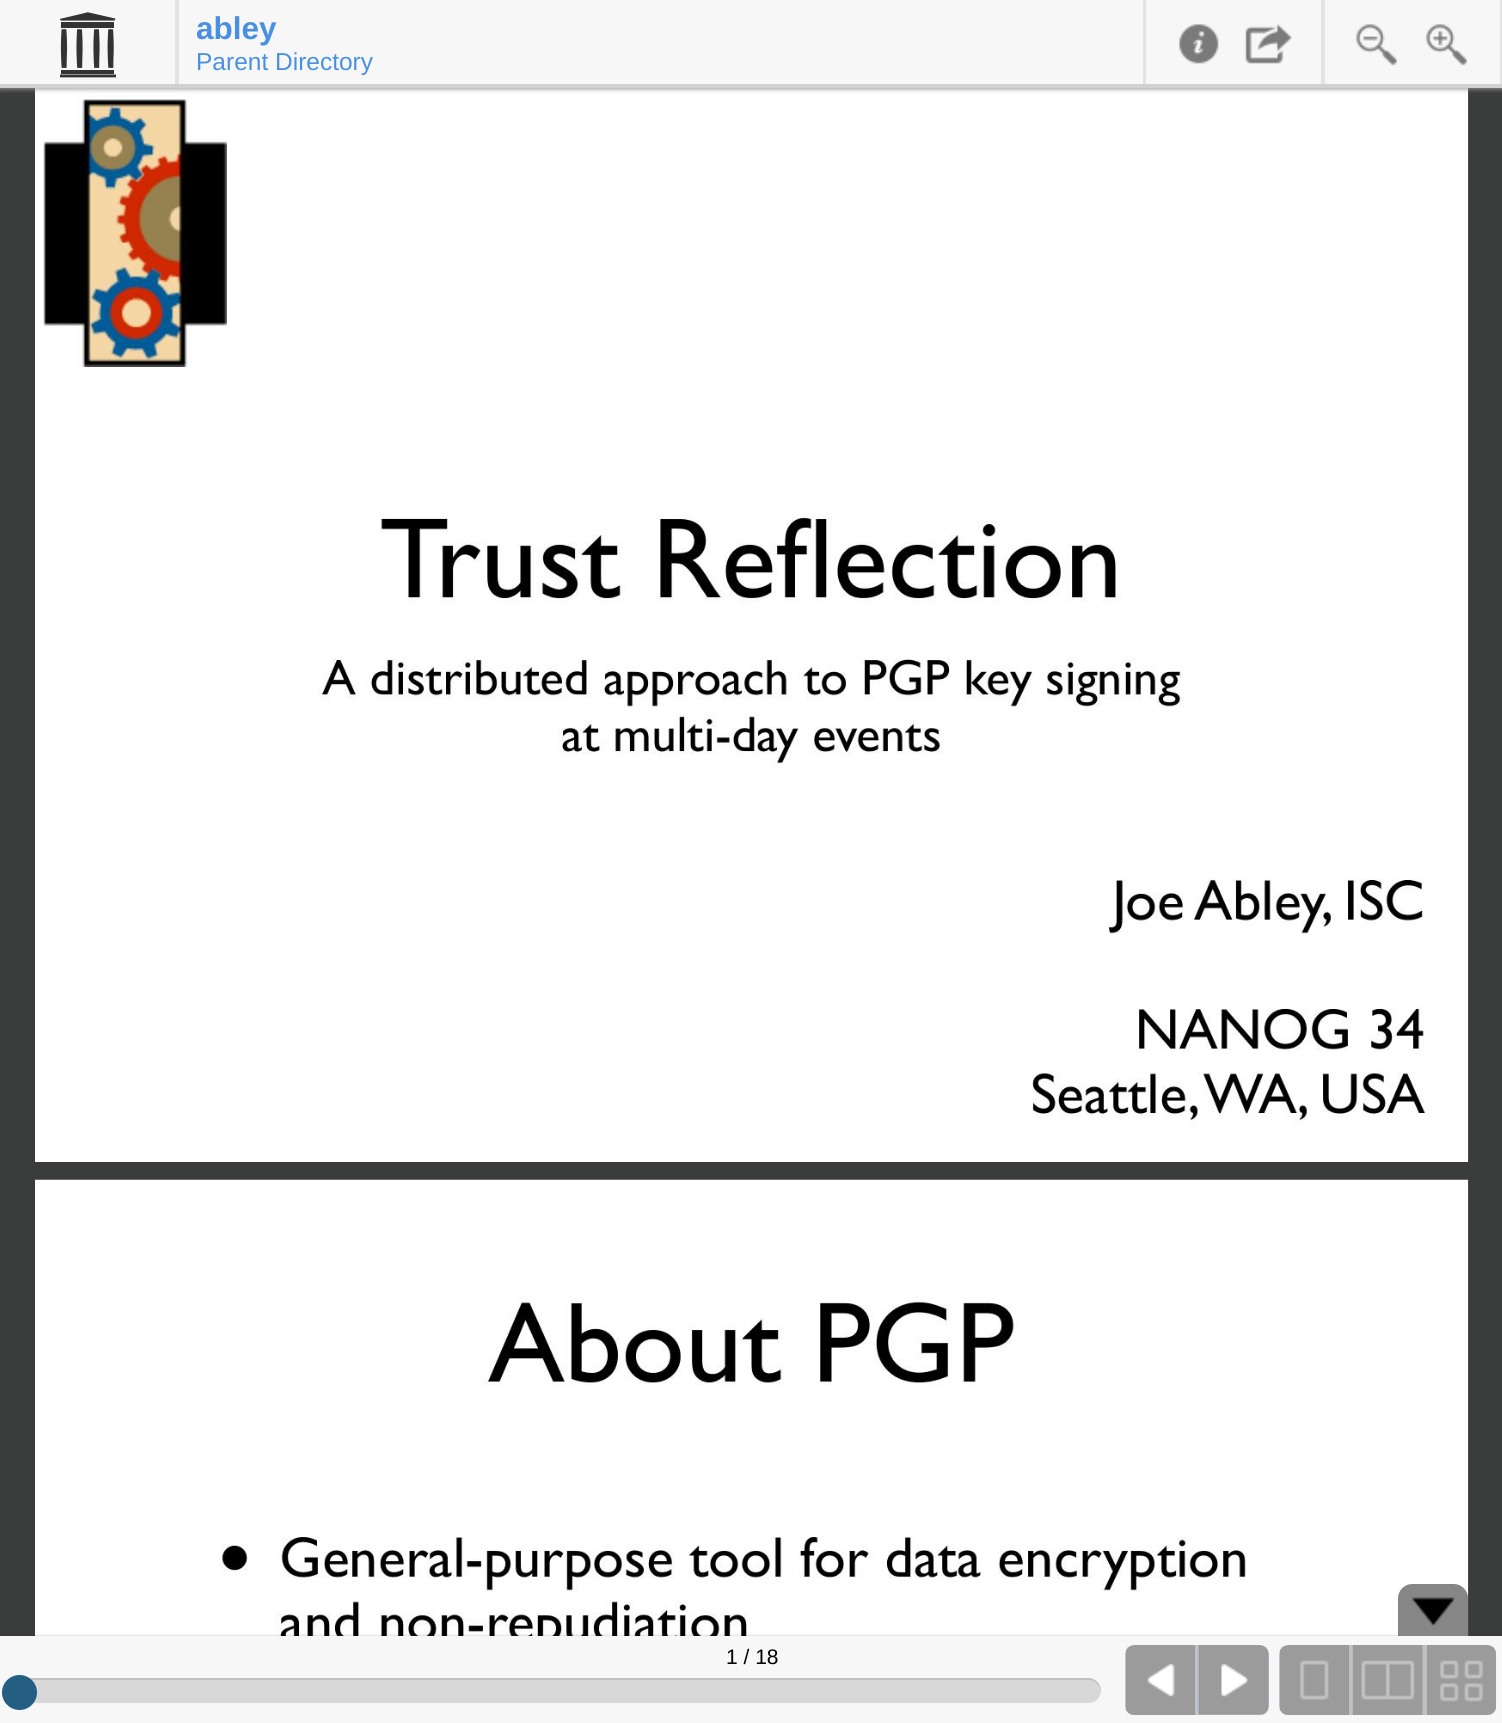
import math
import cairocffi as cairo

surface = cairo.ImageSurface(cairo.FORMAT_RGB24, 1502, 1723)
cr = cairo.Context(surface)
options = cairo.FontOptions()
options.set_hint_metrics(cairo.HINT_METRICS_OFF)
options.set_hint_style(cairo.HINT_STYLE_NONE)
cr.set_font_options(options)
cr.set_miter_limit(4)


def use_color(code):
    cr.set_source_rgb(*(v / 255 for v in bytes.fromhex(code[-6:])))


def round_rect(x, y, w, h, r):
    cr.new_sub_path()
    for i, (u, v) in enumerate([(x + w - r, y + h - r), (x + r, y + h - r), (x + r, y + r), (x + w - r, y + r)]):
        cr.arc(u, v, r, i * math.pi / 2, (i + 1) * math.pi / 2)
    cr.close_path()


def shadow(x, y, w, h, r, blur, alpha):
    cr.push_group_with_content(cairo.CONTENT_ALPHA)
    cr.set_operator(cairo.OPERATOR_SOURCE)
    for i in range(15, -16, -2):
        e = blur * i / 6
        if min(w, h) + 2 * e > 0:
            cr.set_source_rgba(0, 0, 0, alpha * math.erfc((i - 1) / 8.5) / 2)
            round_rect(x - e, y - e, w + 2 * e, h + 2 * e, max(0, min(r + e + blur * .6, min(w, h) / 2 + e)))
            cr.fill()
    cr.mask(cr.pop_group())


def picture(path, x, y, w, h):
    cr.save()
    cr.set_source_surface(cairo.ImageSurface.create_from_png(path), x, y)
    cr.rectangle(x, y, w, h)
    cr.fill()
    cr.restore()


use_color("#3a3b3b")
cr.paint()
picture("img6.png", 35, 88, 1434, 1074)
use_color("#999999")
shadow(0, 2, 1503, 87, 0, 2.5, 1)
use_color("#f7f7f7")
cr.rectangle(0, 0, 1500, 84)
cr.fill()
use_color("#d1d1d1")
cr.rectangle(0, 84, 1502, 4)
cr.fill()
use_color("#e3e3e3")
cr.rectangle(175, 0, 4, 84)
cr.fill()
picture("img1.png", 60, 12, 56, 66)
cr.select_font_face("Liberation Sans", cairo.FONT_SLANT_NORMAL, cairo.FONT_WEIGHT_BOLD)
cr.set_font_size(31.5)
use_color("#4a90e2")
cr.move_to(196, 39)
cr.show_text("abley")
cr.select_font_face("Liberation Sans")
cr.set_font_size(24.5)
cr.move_to(196, 70)
cr.show_text("Parent Directory")
use_color("#e3e3e3")
cr.rectangle(1143, 0, 3, 84)
cr.fill()
cr.rectangle(1321, 0, 4, 84)
cr.fill()
picture("img2.png", 1179, 24, 40, 40)
picture("img3.png", 1245, 24, 47, 40)
cr.rectangle(1500, 0, 2, 84)
cr.fill()
picture("img4.png", 1355, 24, 42, 42)
picture("img5.png", 1425, 24, 42, 42)
picture("img7.png", 35, 1179, 1434, 457)
use_color("#333333")
shadow(2, 1638, 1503, 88, 0, 2, 1)
use_color("#f7f7f7")
cr.rectangle(0, 1636, 1502, 87)
cr.fill()
use_color("#868686")
cr.new_path()
cr.move_to(1412, 1584)
cr.line_to(1454, 1584)
cr.curve_to(1461.5, 1584, 1468, 1590.5, 1468, 1598)
cr.line_to(1468, 1636)
cr.line_to(1398, 1636)
cr.line_to(1398, 1598)
cr.curve_to(1398, 1590.5, 1404.5, 1584, 1412, 1584)
cr.close_path()
cr.fill()
picture("img8.png", 1412, 1597, 43, 29)
cr.set_font_size(21)
use_color("#000000")
cr.move_to(726, 1664)
cr.show_text("1 / 18")
picture("img9.png", 1125, 1645, 70, 70)
use_color("#c1c1c1")
cr.rectangle(1195, 1645, 4, 70)
cr.fill()
picture("img10.png", 1198, 1645, 71, 70)
picture("img11.png", 1279, 1645, 70, 70)
cr.rectangle(1349, 1645, 4, 70)
cr.fill()
picture("img12.png", 1352, 1645, 71, 70)
picture("img13.png", 1422, 1645, 75, 70)
cr.rectangle(1423, 1645, 4, 70)
cr.fill()
use_color("#d8d8d8")
round_rect(18, 1678, 1083, 25, 12.5)
cr.fill()
cr.set_source_rgba(0.608, 0.604, 0.608, 0.39)
cr.new_path()
cr.move_to(30, 1680)
cr.line_to(1088, 1680)
cr.curve_to(1097, 1680, 1101, 1687, 1101, 1693)
cr.curve_to(1102, 1686, 1096, 1678, 1088, 1678)
cr.line_to(30, 1678)
cr.curve_to(27, 1678, 24, 1679, 22, 1682)
cr.line_to(19, 1686)
cr.line_to(18, 1691)
cr.curve_to(18, 1686, 22, 1680, 30, 1680)
cr.close_path()
cr.fill()
use_color("#245e83")
cr.arc(19.5, 1692.5, 17.5, 0, 2 * math.pi)
cr.fill()
surface.write_to_png("result.png")
